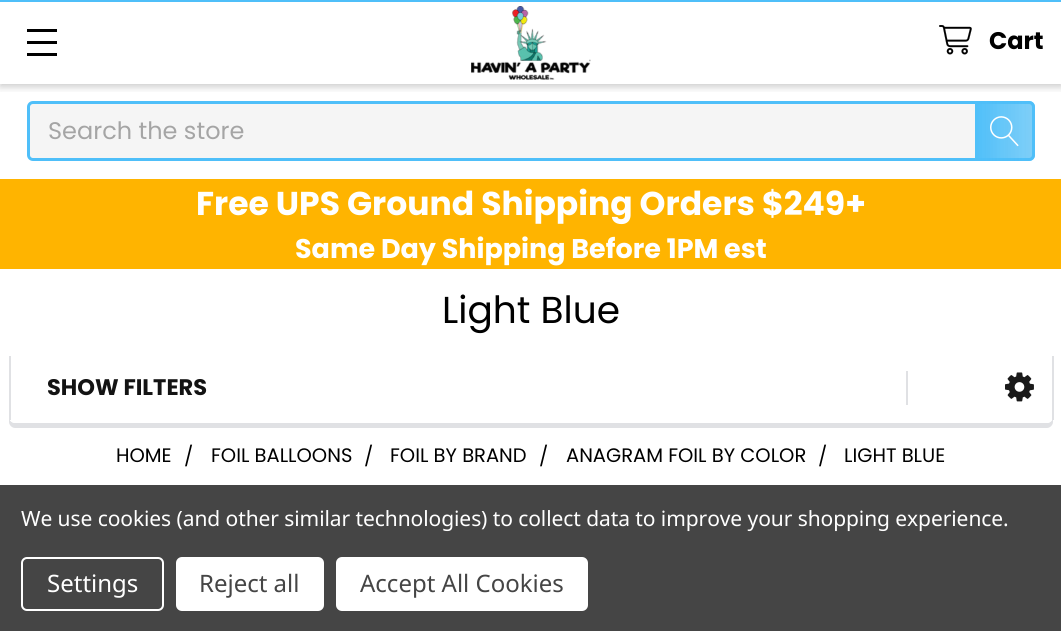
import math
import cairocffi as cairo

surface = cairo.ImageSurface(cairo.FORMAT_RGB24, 1061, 631)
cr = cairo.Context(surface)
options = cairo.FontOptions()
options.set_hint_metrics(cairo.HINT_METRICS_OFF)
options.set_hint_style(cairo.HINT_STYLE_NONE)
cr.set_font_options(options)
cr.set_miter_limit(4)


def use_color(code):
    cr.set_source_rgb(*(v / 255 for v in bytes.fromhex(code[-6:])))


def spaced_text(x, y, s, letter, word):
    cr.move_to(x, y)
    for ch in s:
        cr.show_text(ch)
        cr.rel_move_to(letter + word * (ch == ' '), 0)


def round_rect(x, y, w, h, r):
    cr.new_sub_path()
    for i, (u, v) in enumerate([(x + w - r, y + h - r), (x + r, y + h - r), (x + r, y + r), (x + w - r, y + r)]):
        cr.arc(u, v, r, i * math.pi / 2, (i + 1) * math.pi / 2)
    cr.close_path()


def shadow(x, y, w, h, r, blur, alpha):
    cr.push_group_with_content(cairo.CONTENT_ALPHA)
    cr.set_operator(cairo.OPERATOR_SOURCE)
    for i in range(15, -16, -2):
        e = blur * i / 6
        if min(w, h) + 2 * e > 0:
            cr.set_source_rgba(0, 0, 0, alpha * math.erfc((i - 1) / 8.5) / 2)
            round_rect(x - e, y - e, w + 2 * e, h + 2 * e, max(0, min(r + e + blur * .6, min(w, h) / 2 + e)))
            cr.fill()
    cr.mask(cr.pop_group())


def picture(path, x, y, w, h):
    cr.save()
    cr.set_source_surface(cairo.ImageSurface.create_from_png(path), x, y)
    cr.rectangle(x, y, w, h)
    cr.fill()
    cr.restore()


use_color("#ffffff")
cr.paint()
cr.save()
cr.rectangle(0, 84, 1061, 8)
cr.clip()
use_color("#000000")
shadow(0, 3, 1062, 84, 0, 4, 0.2)
cr.restore()
use_color("#4fbff9")
cr.rectangle(0, 0, 1061, 2)
cr.fill()
use_color("#000000")
cr.rectangle(27, 41, 30, 3)
cr.fill()
cr.rectangle(27, 29, 30, 3)
cr.fill()
cr.rectangle(27, 53, 30, 3)
cr.fill()
picture("img1.png", 471, 6, 120, 74)
picture("img2.png", 939, 25, 33, 30)
cr.select_font_face("Poppins", cairo.FONT_SLANT_NORMAL, cairo.FONT_WEIGHT_BOLD)
cr.set_font_size(24)
cr.move_to(989, 49)
cr.show_text("Cart")
use_color("#f5f5f5")
round_rect(28.5, 102.5, 1005, 57, 4.5)
cr.fill_preserve()
use_color("#4fbff9")
cr.set_line_width(3)
cr.stroke()
cr.select_font_face("Poppins")
use_color("#a5a5a5")
cr.move_to(48, 139)
cr.show_text("Search the store")
gradient = cairo.LinearGradient(975, 131, 1035, 131)
gradient.add_color_stop_rgba(0, 0.31, 0.749, 0.976, 1)
gradient.add_color_stop_rgba(1, 0.31, 0.749, 0.976, 0.7)
cr.set_source(gradient)
cr.new_path()
cr.move_to(975, 101)
cr.line_to(1029, 101)
cr.curve_to(1032.5, 101, 1035, 103.5, 1035, 107)
cr.line_to(1035, 155)
cr.curve_to(1035, 158.5, 1032.5, 161, 1029, 161)
cr.line_to(975, 161)
cr.close_path()
cr.fill()
picture("img3.png", 990, 116, 29, 31)
use_color("#ffb400")
cr.rectangle(0, 179, 1061, 90)
cr.fill()
cr.select_font_face("Poppins", cairo.FONT_SLANT_NORMAL, cairo.FONT_WEIGHT_BOLD)
cr.set_font_size(33)
use_color("#ffffff")
cr.move_to(196, 215)
cr.show_text("Free UPS Ground Shipping Orders $249+")
cr.set_font_size(27)
cr.move_to(295, 258)
cr.show_text("Same Day Shipping Before 1PM est")
cr.select_font_face("Poppins")
cr.set_font_size(37.5)
use_color("#000000")
cr.move_to(442, 323)
cr.show_text("Light Blue")
use_color("#e0e1e4")
cr.new_path()
cr.move_to(9, 417)
cr.line_to(9, 422)
cr.curve_to(9, 425, 12, 428, 15, 428)
cr.line_to(1047, 428)
cr.curve_to(1050, 428, 1053, 425, 1053, 422)
cr.line_to(1053, 417)
cr.curve_to(1053, 420, 1050, 423, 1047, 423)
cr.line_to(15, 423)
cr.curve_to(12, 423, 9, 420, 9, 417)
cr.close_path()
cr.fill()
use_color("#ffffff")
round_rect(9, 353, 1044, 70, 6)
cr.fill()
use_color("#e0e1e4")
cr.rectangle(1052, 356, 2, 64)
cr.fill()
cr.rectangle(9, 356, 2, 64)
cr.fill()
cr.rectangle(906, 371, 2, 34)
cr.fill()
cr.select_font_face("Poppins", cairo.FONT_SLANT_NORMAL, cairo.FONT_WEIGHT_BOLD)
cr.set_font_size(22.5)
use_color("#131313")
cr.move_to(47, 395)
cr.show_text("SHOW FILTERS")
picture("img4.png", 1005, 372, 29, 30)
cr.select_font_face("Poppins")
cr.set_font_size(19.5)
use_color("#000000")
cr.move_to(116, 462)
cr.show_text("HOME")
cr.move_to(184, 463)
cr.show_text("/")
cr.move_to(211, 462)
cr.show_text("FOIL BALLOONS")
cr.move_to(364, 463)
cr.show_text("/")
cr.move_to(390, 462)
cr.show_text("FOIL BY BRAND")
cr.move_to(539, 463)
cr.show_text("/")
cr.move_to(566, 462)
cr.show_text("ANAGRAM FOIL BY COLOR")
cr.move_to(818, 463)
cr.show_text("/")
cr.move_to(844, 462)
cr.show_text("LIGHT BLUE")
use_color("#454545")
cr.rectangle(0, 485, 1061, 146)
cr.fill()
cr.select_font_face("Noto Sans")
cr.set_font_size(21)
use_color("#ffffff")
spaced_text(21, 526, "We use cookies (and other similar technologies) to collect data to improve your shopping experience.", -0.08, 0)
round_rect(22, 558, 141, 52, 5)
cr.set_line_width(2)
cr.stroke()
cr.set_font_size(24)
cr.move_to(47, 592)
cr.show_text("Settings")
round_rect(176, 557, 148, 54, 6)
cr.fill()
use_color("#454545")
cr.move_to(199, 592)
cr.show_text("Reject all")
use_color("#ffffff")
round_rect(336, 557, 252, 54, 6)
cr.fill()
use_color("#454545")
cr.move_to(360, 592)
cr.show_text("Accept All Cookies")
surface.write_to_png("result.png")
